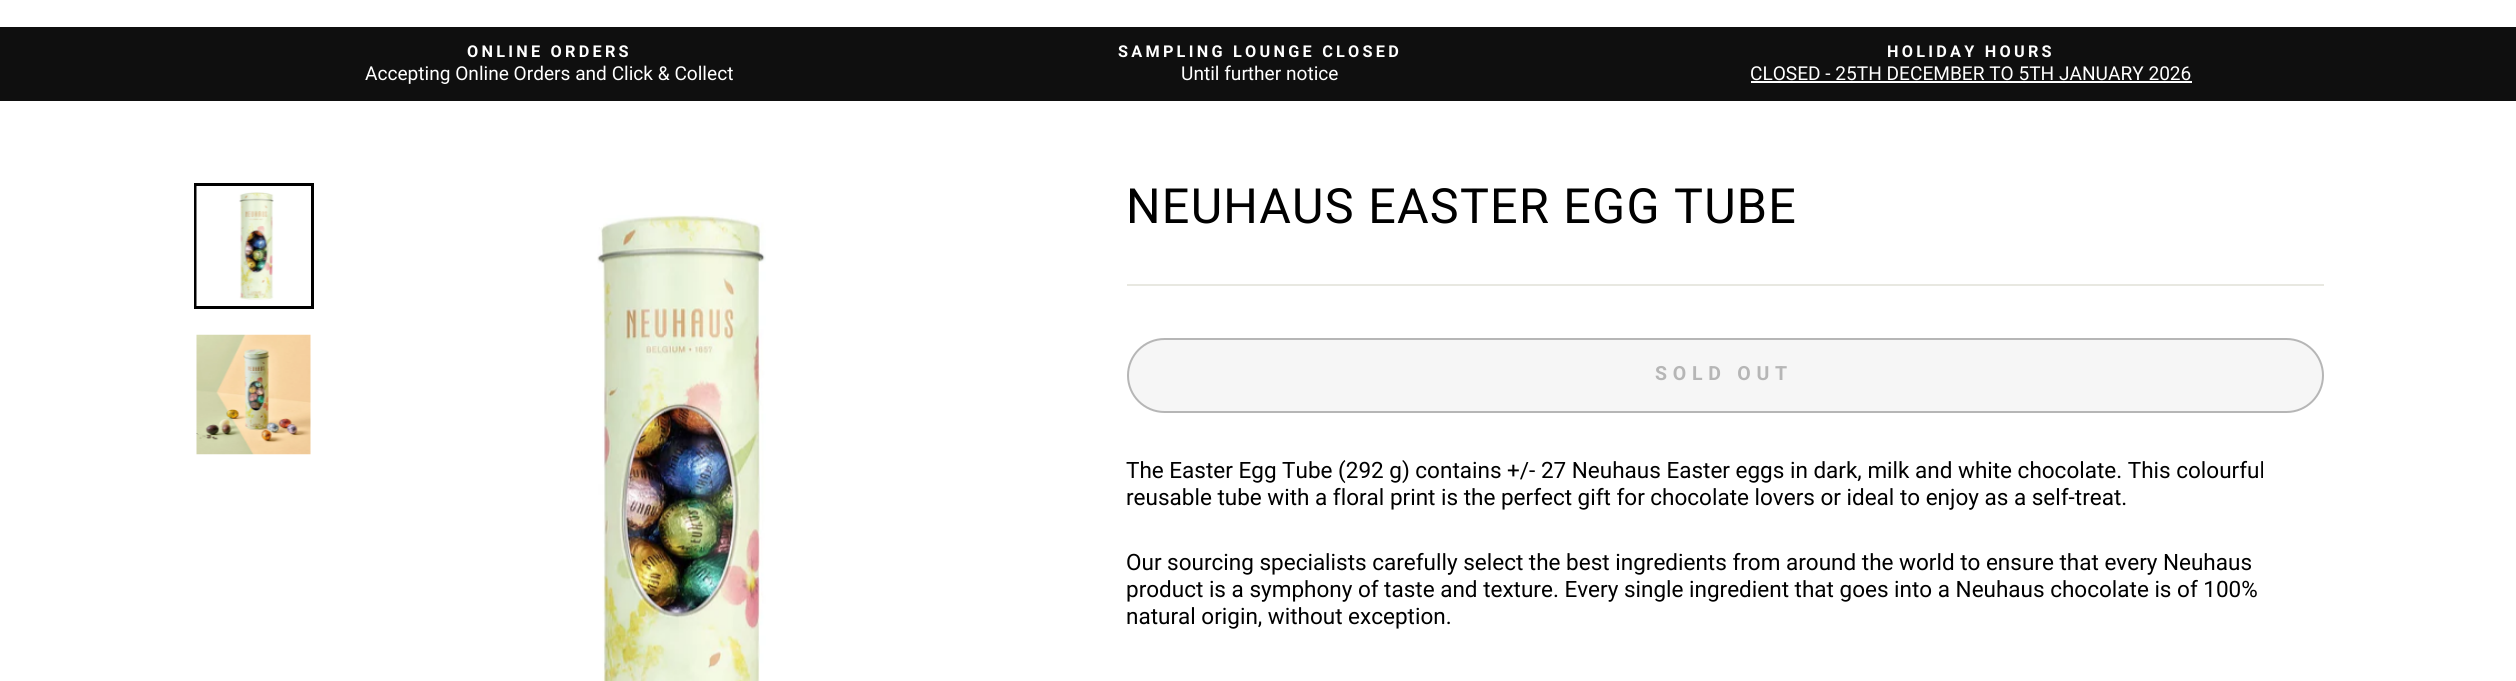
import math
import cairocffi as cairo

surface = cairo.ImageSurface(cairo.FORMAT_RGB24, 2516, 681)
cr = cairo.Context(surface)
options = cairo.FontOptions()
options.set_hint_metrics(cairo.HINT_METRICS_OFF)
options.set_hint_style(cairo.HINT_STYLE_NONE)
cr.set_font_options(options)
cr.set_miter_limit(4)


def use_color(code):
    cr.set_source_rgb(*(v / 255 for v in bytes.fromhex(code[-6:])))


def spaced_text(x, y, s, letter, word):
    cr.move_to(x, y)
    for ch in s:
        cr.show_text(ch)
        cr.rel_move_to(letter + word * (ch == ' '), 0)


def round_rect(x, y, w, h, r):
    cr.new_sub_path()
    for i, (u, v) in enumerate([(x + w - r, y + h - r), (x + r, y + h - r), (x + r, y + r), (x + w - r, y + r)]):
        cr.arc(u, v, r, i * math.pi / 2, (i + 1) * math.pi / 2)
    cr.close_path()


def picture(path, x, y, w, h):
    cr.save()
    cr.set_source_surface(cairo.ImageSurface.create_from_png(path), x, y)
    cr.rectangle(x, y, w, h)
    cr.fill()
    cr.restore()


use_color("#ffffff")
cr.paint()
use_color("#0f0f0f")
cr.rectangle(0, 27, 2516, 74)
cr.fill()
cr.select_font_face("Roboto", cairo.FONT_SLANT_NORMAL, cairo.FONT_WEIGHT_BOLD)
cr.set_font_size(16.25)
use_color("#ffffff")
spaced_text(467, 57, "ONLINE ORDERS", 3.25, 0)
cr.select_font_face("Roboto")
cr.set_font_size(19.1)
cr.move_to(365, 80)
cr.show_text("Accepting Online Orders and Click & Collect")
cr.select_font_face("Roboto", cairo.FONT_SLANT_NORMAL, cairo.FONT_WEIGHT_BOLD)
cr.set_font_size(16.25)
spaced_text(1118, 57, "SAMPLING LOUNGE CLOSED", 3.25, 0)
cr.select_font_face("Roboto")
cr.set_font_size(19.1)
cr.move_to(1181, 80)
cr.show_text("Until further notice")
cr.select_font_face("Roboto", cairo.FONT_SLANT_NORMAL, cairo.FONT_WEIGHT_BOLD)
cr.set_font_size(16.25)
spaced_text(1887, 57, "HOLIDAY HOURS", 3.25, 0)
cr.select_font_face("Roboto")
cr.set_font_size(19.1)
cr.move_to(1750, 80)
cr.show_text("CLOSED - 25TH DECEMBER TO 5TH JANUARY 2026")
cr.rectangle(1751, 81, 441, 2)
cr.fill()
cr.rectangle(195.5, 184.5, 117, 123)
use_color("#000000")
cr.set_line_width(3)
cr.stroke()
picture("img1.png", 196, 186, 78, 120)
picture("img2.png", 196, 334, 115, 121)
picture("img3.png", 597, 215, 169, 466)
cr.set_font_size(48.5)
spaced_text(1126, 223, "NEUHAUS EASTER EGG TUBE", 1.25, 0)
use_color("#e8e8e1")
cr.rectangle(1127, 284, 1197, 2)
cr.fill()
use_color("#f6f6f6")
round_rect(1128, 339, 1195, 73, 36.5)
cr.fill_preserve()
use_color("#b6b6b6")
cr.set_line_width(2)
cr.stroke()
cr.select_font_face("Roboto", cairo.FONT_SLANT_NORMAL, cairo.FONT_WEIGHT_BOLD)
cr.set_font_size(19.5)
spaced_text(1655, 380, "SOLD OUT", 5.75, 0)
cr.select_font_face("Roboto")
cr.set_font_size(22.5)
use_color("#000000")
cr.move_to(1126, 478)
cr.show_text("The Easter Egg Tube (292 g) contains +/- 27 Neuhaus Easter eggs in dark, milk and white chocolate. This colourful")
cr.move_to(1126, 505)
cr.show_text("reusable tube with a floral print is the perfect gift for chocolate lovers or ideal to enjoy as a self-treat.")
cr.move_to(1126, 570)
cr.show_text("Our sourcing specialists carefully select the best ingredients from around the world to ensure that every Neuhaus")
cr.move_to(1126, 597)
cr.show_text("product is a symphony of taste and texture. Every single ingredient that goes into a Neuhaus chocolate is of 100%")
cr.move_to(1126, 624)
cr.show_text("natural origin, without exception.")
surface.write_to_png("result.png")
